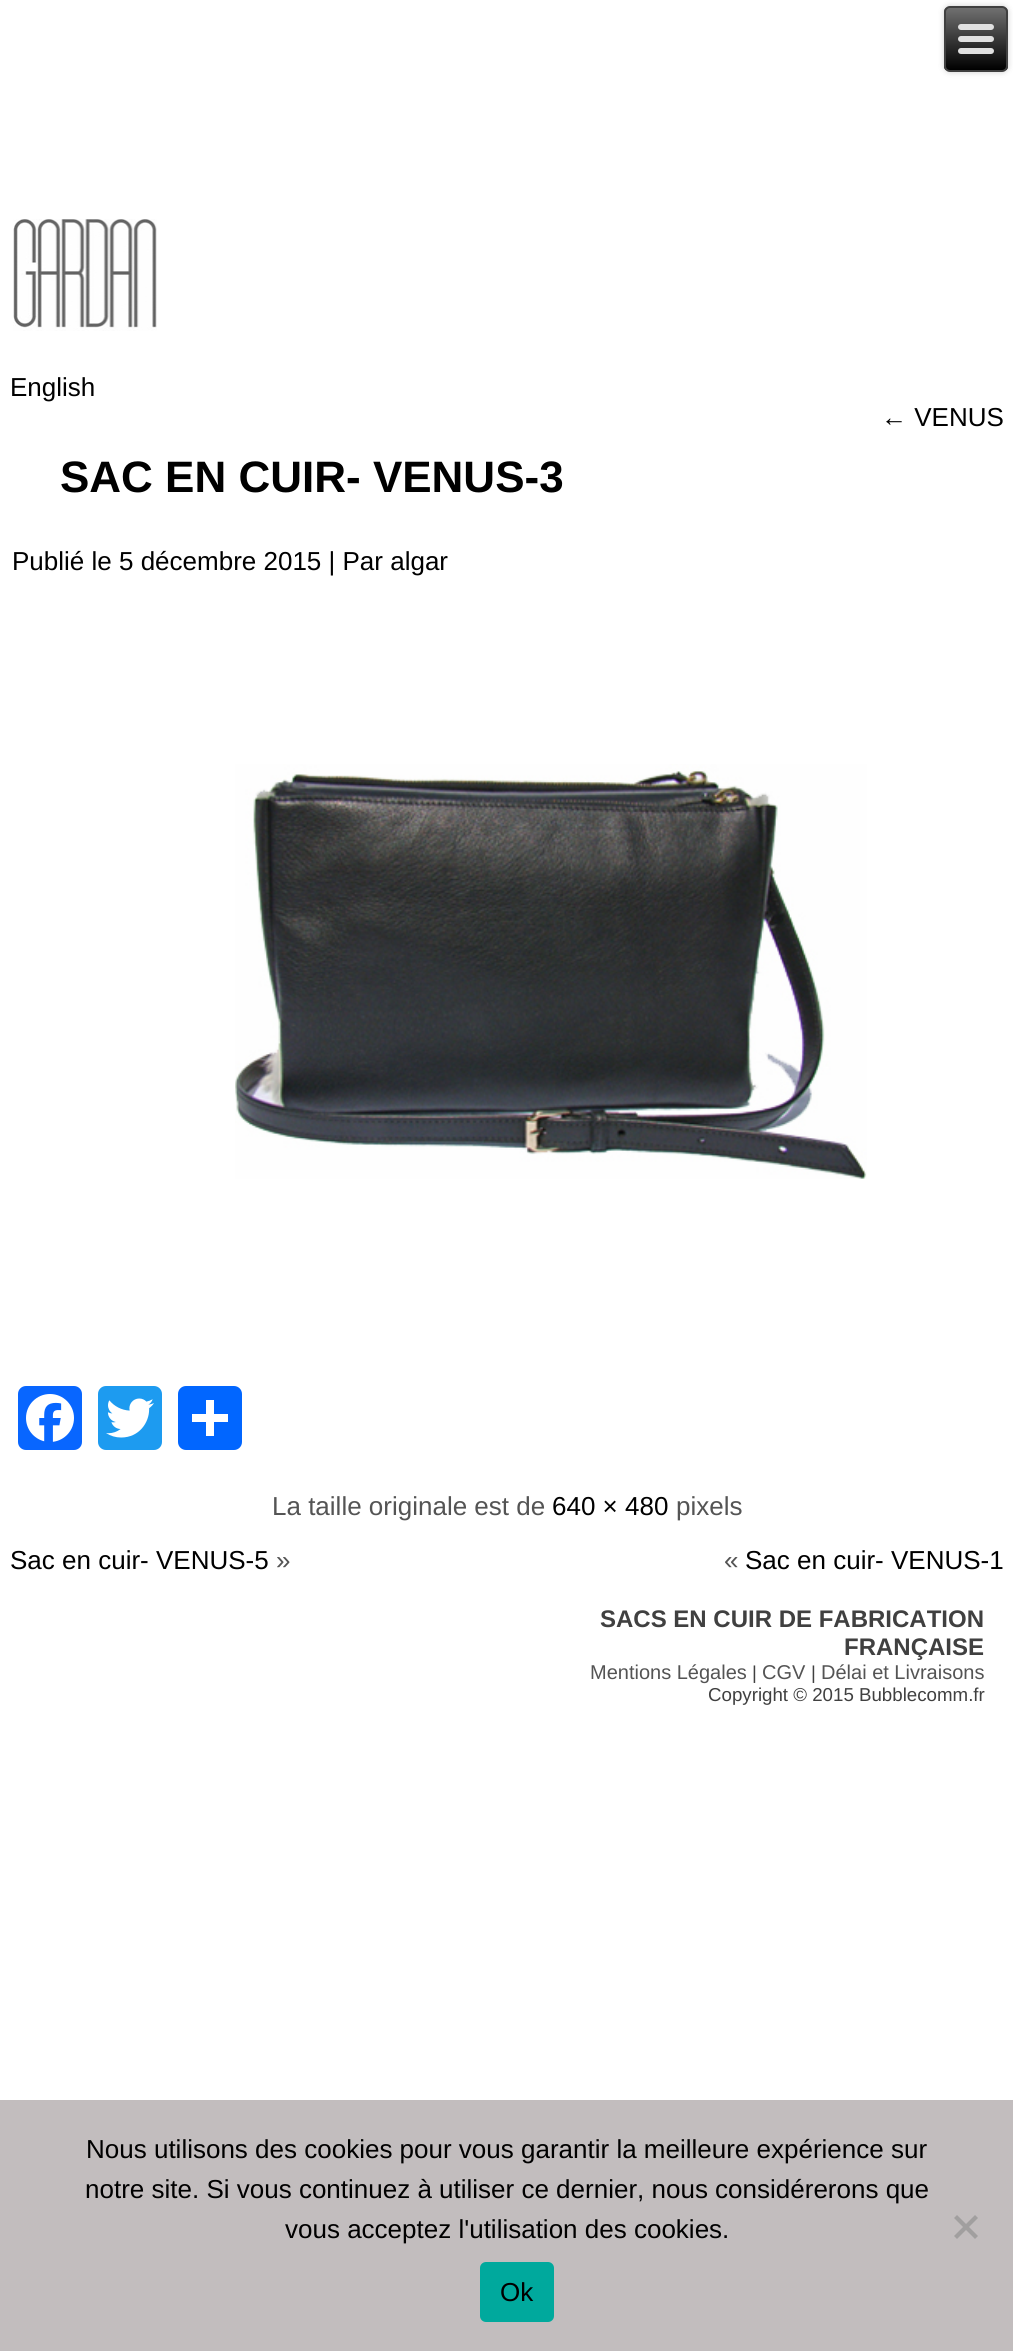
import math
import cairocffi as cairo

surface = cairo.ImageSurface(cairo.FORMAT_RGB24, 1013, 2351)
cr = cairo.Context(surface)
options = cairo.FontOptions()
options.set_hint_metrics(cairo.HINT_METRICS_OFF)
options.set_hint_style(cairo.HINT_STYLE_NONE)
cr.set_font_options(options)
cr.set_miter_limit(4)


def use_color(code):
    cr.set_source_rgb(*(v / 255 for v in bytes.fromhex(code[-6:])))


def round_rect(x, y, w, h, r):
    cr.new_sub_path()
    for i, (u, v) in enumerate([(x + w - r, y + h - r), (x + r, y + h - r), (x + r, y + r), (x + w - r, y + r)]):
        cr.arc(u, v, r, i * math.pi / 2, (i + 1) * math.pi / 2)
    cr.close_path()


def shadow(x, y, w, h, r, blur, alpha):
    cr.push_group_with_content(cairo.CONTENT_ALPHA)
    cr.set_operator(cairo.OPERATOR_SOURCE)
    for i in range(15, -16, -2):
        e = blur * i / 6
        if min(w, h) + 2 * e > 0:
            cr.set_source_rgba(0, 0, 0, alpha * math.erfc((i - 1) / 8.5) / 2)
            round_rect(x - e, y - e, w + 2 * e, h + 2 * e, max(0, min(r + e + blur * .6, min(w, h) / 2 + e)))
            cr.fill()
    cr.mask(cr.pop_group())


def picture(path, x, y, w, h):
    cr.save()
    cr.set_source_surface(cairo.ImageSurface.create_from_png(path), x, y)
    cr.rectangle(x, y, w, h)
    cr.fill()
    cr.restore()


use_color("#ffffff")
cr.paint()
use_color("#000000")
shadow(944, 6, 64, 66, 6, 3, 0.2)
cr.save()
round_rect(944, 6, 64, 66, 6)
cr.clip()
gradient = cairo.LinearGradient(976, 8, 976, 70)
gradient.add_color_stop_rgba(0, 0.439, 0.439, 0.439, 1)
gradient.add_color_stop_rgba(1, 0, 0, 0, 1)
cr.set_source(gradient)
cr.rectangle(944, 8, 64, 62)
cr.fill()
cr.restore()
round_rect(945, 7, 62, 64, 5)
use_color("#404040")
cr.stroke()
use_color("#e0e0e0")
round_rect(958, 24, 36, 6, 3)
cr.fill()
round_rect(958, 36, 36, 6, 3)
cr.fill()
round_rect(958, 48, 36, 6, 3)
cr.fill()
picture("img1.png", 13, 219, 144, 112)
cr.select_font_face("Liberation Sans")
cr.set_font_size(26)
use_color("#000000")
cr.move_to(10, 396)
cr.show_text("English")
cr.move_to(881, 426)
cr.show_text("← VENUS")
cr.select_font_face("Liberation Sans", cairo.FONT_SLANT_NORMAL, cairo.FONT_WEIGHT_BOLD)
cr.set_font_size(44)
cr.move_to(60, 492)
cr.show_text("SAC EN CUIR- VENUS-3")
cr.select_font_face("Liberation Sans")
cr.set_font_size(26)
cr.move_to(12, 570)
cr.show_text("Publié le 5 décembre 2015 | Par algar")
picture("img2.png", 235, 764, 632, 415)
use_color("#0866ff")
round_rect(18, 1386, 64, 64, 8)
cr.fill()
picture("img3.png", 26, 1394, 48, 48)
use_color("#1d9bf0")
round_rect(98, 1386, 64, 64, 8)
cr.fill()
picture("img4.png", 106, 1398, 48, 40)
use_color("#0166ff")
round_rect(178, 1386, 64, 64, 8)
cr.fill()
use_color("#ffffff")
cr.rectangle(206, 1400, 8, 36)
cr.fill()
cr.rectangle(192, 1414, 36, 8)
cr.fill()
use_color("#545454")
cr.move_to(272, 1515)
cr.show_text("La taille originale est de")
use_color("#000000")
cr.move_to(552, 1515)
cr.show_text("640 × 480")
use_color("#545454")
cr.move_to(676, 1515)
cr.show_text("pixels")
use_color("#000000")
cr.move_to(10, 1569)
cr.show_text("Sac en cuir- VENUS-5")
use_color("#545454")
cr.move_to(276, 1569)
cr.show_text("»")
cr.move_to(724, 1569)
cr.show_text("«")
use_color("#000000")
cr.move_to(745, 1569)
cr.show_text("Sac en cuir- VENUS-1")
cr.select_font_face("Liberation Sans", cairo.FONT_SLANT_NORMAL, cairo.FONT_WEIGHT_BOLD)
cr.set_font_size(24)
use_color("#404040")
cr.move_to(600, 1627)
cr.show_text("SACS EN CUIR DE FABRICATION")
cr.move_to(844, 1655)
cr.show_text("FRANÇAISE")
cr.select_font_face("Liberation Sans")
cr.set_font_size(20)
use_color("#545454")
cr.move_to(590, 1679)
cr.show_text("Mentions Légales")
cr.set_font_size(18.7)
use_color("#404040")
cr.move_to(752, 1679)
cr.show_text("|")
cr.set_font_size(20)
use_color("#545454")
cr.move_to(762, 1679)
cr.show_text("CGV")
cr.set_font_size(18.7)
use_color("#404040")
cr.move_to(811, 1679)
cr.show_text("|")
cr.set_font_size(20)
use_color("#545454")
cr.move_to(821, 1679)
cr.show_text("Délai et Livraisons")
cr.set_font_size(18.7)
use_color("#404040")
cr.move_to(708, 1701)
cr.show_text("Copyright © 2015 Bubblecomm.fr")
use_color("#c2bdbe")
cr.rectangle(0, 2100, 1013, 251)
cr.fill()
cr.set_font_size(26)
use_color("#000000")
cr.move_to(86, 2158)
cr.show_text("Nous utilisons des cookies pour vous garantir la meilleure expérience sur")
cr.move_to(85, 2198)
cr.show_text("notre site. Si vous continuez à utiliser ce dernier, nous considérerons que")
cr.move_to(285, 2238)
cr.show_text("vous acceptez l'utilisation des cookies.")
use_color("#a19f9f")
cr.new_path()
cr.move_to(975, 2215)
cr.line_to(978, 2218)
cr.line_to(957, 2239)
cr.line_to(954, 2236)
cr.close_path()
cr.fill()
cr.new_path()
cr.move_to(954, 2218)
cr.line_to(957, 2215)
cr.line_to(978, 2236)
cr.line_to(975, 2239)
cr.close_path()
cr.fill()
use_color("#00a99d")
round_rect(480, 2262, 74, 60, 6)
cr.fill()
use_color("#000000")
cr.move_to(500, 2301)
cr.show_text("Ok")
surface.write_to_png("result.png")
